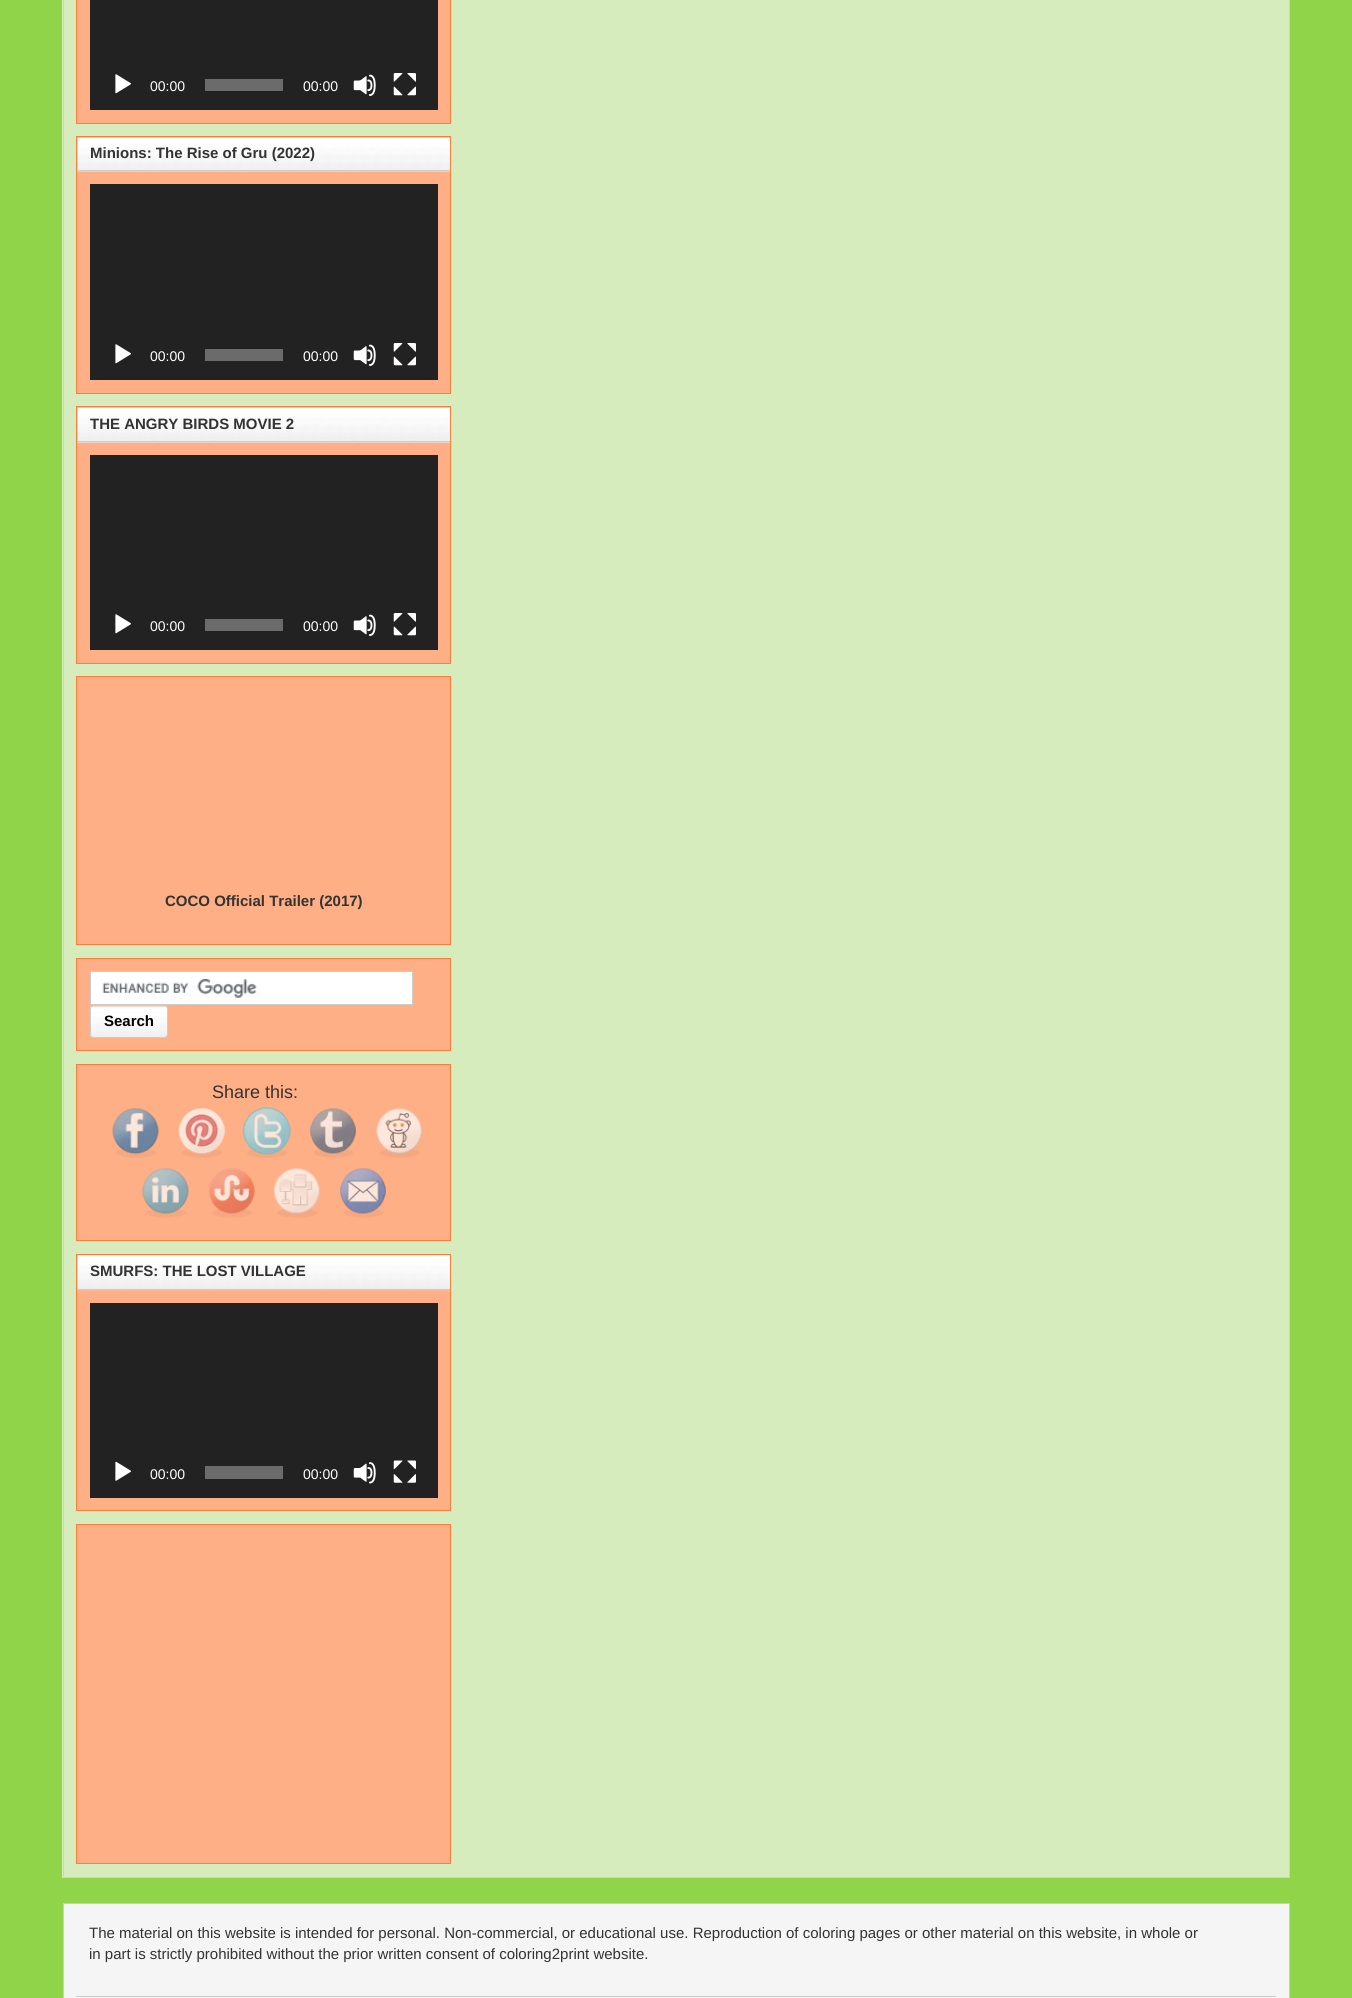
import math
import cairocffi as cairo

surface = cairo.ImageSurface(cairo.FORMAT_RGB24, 1352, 1998)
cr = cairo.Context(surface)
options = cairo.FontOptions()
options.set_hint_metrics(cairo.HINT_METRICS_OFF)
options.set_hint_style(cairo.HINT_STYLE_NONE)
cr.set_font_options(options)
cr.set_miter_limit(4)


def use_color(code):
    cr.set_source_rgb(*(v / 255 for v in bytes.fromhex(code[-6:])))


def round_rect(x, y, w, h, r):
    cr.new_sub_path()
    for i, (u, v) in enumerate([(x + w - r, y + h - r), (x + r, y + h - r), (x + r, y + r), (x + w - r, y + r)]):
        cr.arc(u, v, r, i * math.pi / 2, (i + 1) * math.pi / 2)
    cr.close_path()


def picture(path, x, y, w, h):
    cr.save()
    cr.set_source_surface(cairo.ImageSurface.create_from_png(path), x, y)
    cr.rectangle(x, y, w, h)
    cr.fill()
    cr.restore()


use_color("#8fd449")
cr.paint()
use_color("#d6ecbd")
cr.rectangle(62, 0, 1227, 1878)
cr.fill()
cr.rectangle(63.5, -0.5, 1226, 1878)
use_color("#d3d1c7")
cr.set_line_width(1)
cr.stroke()
use_color("#ffaf85")
cr.rectangle(76.5, -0.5, 374, 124)
cr.fill_preserve()
use_color("#fd7e3b")
cr.stroke()
use_color("#222222")
cr.rectangle(90, 0, 348, 110)
cr.fill()
picture("img1.png", 115, 74, 16, 20)
cr.select_font_face("Liberation Sans")
cr.set_font_size(14)
use_color("#ffffff")
cr.move_to(150, 91)
cr.show_text("00:00")
use_color("#6b6b6b")
cr.rectangle(205, 79, 78, 12)
cr.fill()
use_color("#ffffff")
cr.move_to(303, 91)
cr.show_text("00:00")
picture("img2.png", 353, 74, 23, 22)
picture("img3.png", 393, 73, 23, 23)
use_color("#ffaf85")
cr.rectangle(76.5, 136.5, 374, 257)
cr.fill_preserve()
use_color("#fd7e3b")
cr.stroke()
picture("img4.png", 77, 137, 373, 35)
use_color("#cccccc")
cr.rectangle(78, 170, 372, 1)
cr.fill()
cr.select_font_face("Liberation Sans", cairo.FONT_SLANT_NORMAL, cairo.FONT_WEIGHT_BOLD)
cr.set_font_size(15)
use_color("#333333")
cr.move_to(90, 158)
cr.show_text("Minions: The Rise of Gru (2022)")
use_color("#222222")
cr.rectangle(90, 184, 348, 196)
cr.fill()
picture("img1.png", 115, 344, 16, 20)
cr.select_font_face("Liberation Sans")
cr.set_font_size(14)
use_color("#ffffff")
cr.move_to(150, 361)
cr.show_text("00:00")
use_color("#6b6b6b")
cr.rectangle(205, 349, 78, 12)
cr.fill()
use_color("#ffffff")
cr.move_to(303, 361)
cr.show_text("00:00")
picture("img2.png", 353, 344, 23, 22)
picture("img3.png", 393, 343, 23, 23)
use_color("#ffaf85")
cr.rectangle(76.5, 406.5, 374, 257)
cr.fill_preserve()
use_color("#fd7e3b")
cr.stroke()
picture("img5.png", 77, 407, 373, 36)
use_color("#cccccc")
cr.rectangle(78, 441, 372, 1)
cr.fill()
cr.select_font_face("Liberation Sans", cairo.FONT_SLANT_NORMAL, cairo.FONT_WEIGHT_BOLD)
cr.set_font_size(15)
use_color("#333333")
cr.move_to(90, 429)
cr.show_text("THE ANGRY BIRDS MOVIE 2")
use_color("#222222")
cr.rectangle(90, 455, 348, 195)
cr.fill()
picture("img1.png", 115, 614, 16, 20)
cr.select_font_face("Liberation Sans")
cr.set_font_size(14)
use_color("#ffffff")
cr.move_to(150, 631)
cr.show_text("00:00")
use_color("#6b6b6b")
cr.rectangle(205, 619, 78, 12)
cr.fill()
use_color("#ffffff")
cr.move_to(303, 631)
cr.show_text("00:00")
picture("img2.png", 353, 614, 23, 22)
picture("img3.png", 393, 613, 23, 23)
use_color("#ffaf85")
cr.rectangle(76.5, 676.5, 374, 268)
cr.fill_preserve()
use_color("#fd7e3b")
cr.stroke()
cr.select_font_face("Liberation Sans", cairo.FONT_SLANT_NORMAL, cairo.FONT_WEIGHT_BOLD)
cr.set_font_size(15)
use_color("#333333")
cr.move_to(165, 906)
cr.show_text("COCO Official Trailer (2017)")
use_color("#ffaf85")
cr.rectangle(76.5, 958.5, 374, 92)
cr.fill_preserve()
use_color("#fd7e3b")
cr.stroke()
use_color("#ffffff")
cr.rectangle(91, 972, 321, 32)
cr.fill()
picture("img6.png", 102, 979, 155, 19)
cr.rectangle(90.5, 971.5, 322, 33)
use_color("#cccccc")
cr.stroke()
picture("img7.png", 90, 1006, 78, 32)
round_rect(90.5, 1005.5, 77, 32, 3.5)
cr.stroke()
use_color("#000000")
cr.move_to(104, 1026)
cr.show_text("Search")
use_color("#ffaf85")
cr.rectangle(76.5, 1064.5, 374, 176)
cr.fill_preserve()
use_color("#fd7e3b")
cr.stroke()
cr.select_font_face("Liberation Sans")
cr.set_font_size(18)
use_color("#333333")
cr.move_to(212, 1098)
cr.show_text("Share this:")
picture("img8.png", 112, 1108, 47, 50)
picture("img9.png", 178, 1108, 47, 50)
picture("img10.png", 242, 1107, 49, 51)
picture("img11.png", 310, 1108, 46, 50)
picture("img12.png", 376, 1108, 47, 50)
picture("img13.png", 142, 1168, 47, 50)
picture("img14.png", 209, 1168, 46, 50)
picture("img15.png", 273, 1168, 47, 50)
picture("img16.png", 340, 1168, 46, 50)
use_color("#ffaf85")
cr.rectangle(76.5, 1254.5, 374, 256)
cr.fill_preserve()
use_color("#fd7e3b")
cr.stroke()
picture("img17.png", 77, 1255, 373, 36)
use_color("#cccccc")
cr.rectangle(78, 1289, 372, 1)
cr.fill()
cr.select_font_face("Liberation Sans", cairo.FONT_SLANT_NORMAL, cairo.FONT_WEIGHT_BOLD)
cr.set_font_size(15)
use_color("#333333")
cr.move_to(90, 1276)
cr.show_text("SMURFS: THE LOST VILLAGE")
use_color("#222222")
cr.rectangle(90, 1303, 348, 195)
cr.fill()
picture("img18.png", 115, 1461, 16, 20)
cr.select_font_face("Liberation Sans")
cr.set_font_size(14)
use_color("#ffffff")
cr.move_to(150, 1479)
cr.show_text("00:00")
use_color("#6b6b6b")
cr.rectangle(205, 1466, 78, 13)
cr.fill()
use_color("#ffffff")
cr.move_to(303, 1479)
cr.show_text("00:00")
picture("img19.png", 353, 1462, 23, 22)
picture("img20.png", 393, 1460, 23, 23)
use_color("#ffaf85")
cr.rectangle(76.5, 1524.5, 374, 339)
cr.fill_preserve()
use_color("#fd7e3b")
cr.stroke()
use_color("#f5f5f5")
cr.rectangle(63.5, 1903.5, 1226, 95)
cr.fill_preserve()
use_color("#cccccc")
cr.stroke()
cr.rectangle(76, 1996, 1200, 1)
cr.fill()
cr.set_font_size(15)
use_color("#333333")
cr.move_to(89, 1938)
cr.show_text("The material on this website is intended for personal. Non-commercial, or educational use. Reproduction of coloring pages or other material on this website, in whole or")
cr.move_to(89, 1959)
cr.show_text("in part is strictly prohibited without the prior written consent of coloring2print website.")
surface.write_to_png("result.png")
